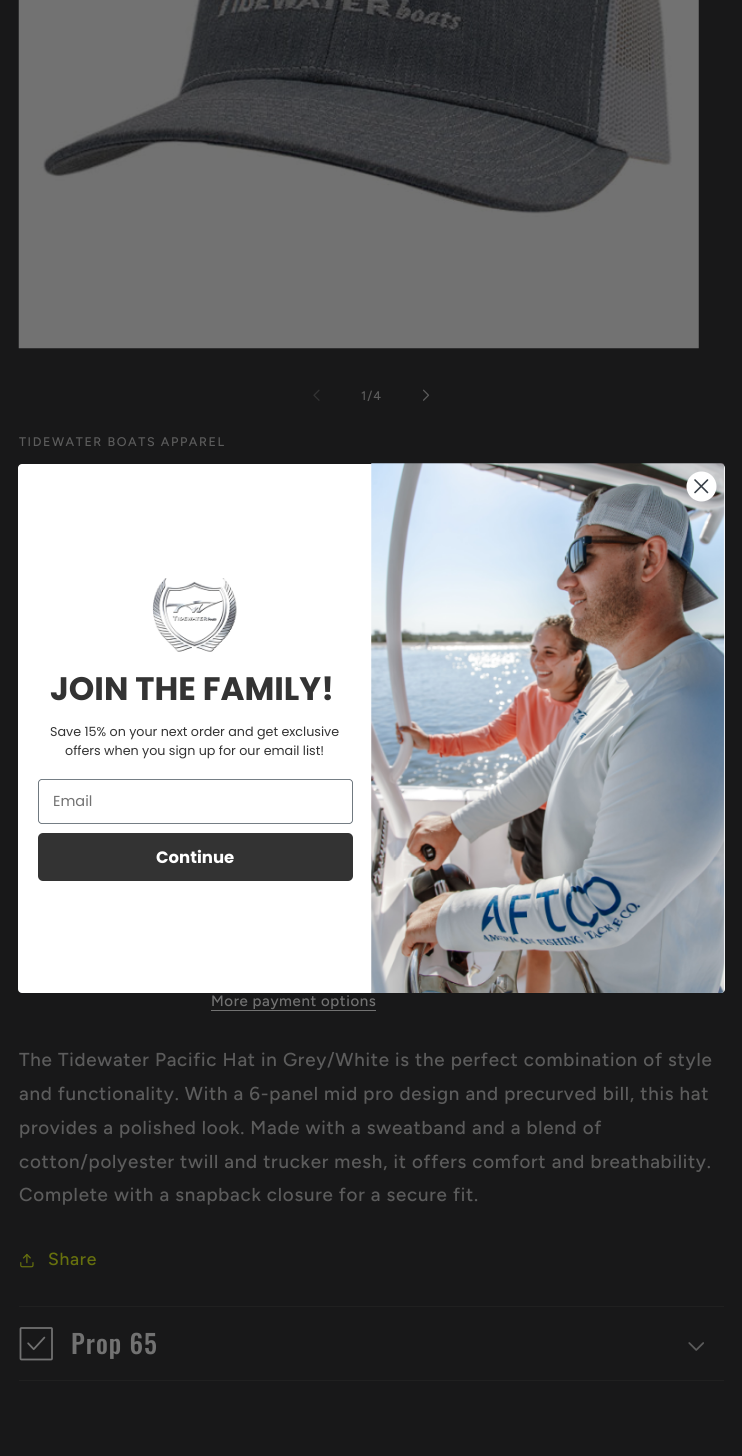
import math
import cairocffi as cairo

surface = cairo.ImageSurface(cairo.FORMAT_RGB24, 742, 1456)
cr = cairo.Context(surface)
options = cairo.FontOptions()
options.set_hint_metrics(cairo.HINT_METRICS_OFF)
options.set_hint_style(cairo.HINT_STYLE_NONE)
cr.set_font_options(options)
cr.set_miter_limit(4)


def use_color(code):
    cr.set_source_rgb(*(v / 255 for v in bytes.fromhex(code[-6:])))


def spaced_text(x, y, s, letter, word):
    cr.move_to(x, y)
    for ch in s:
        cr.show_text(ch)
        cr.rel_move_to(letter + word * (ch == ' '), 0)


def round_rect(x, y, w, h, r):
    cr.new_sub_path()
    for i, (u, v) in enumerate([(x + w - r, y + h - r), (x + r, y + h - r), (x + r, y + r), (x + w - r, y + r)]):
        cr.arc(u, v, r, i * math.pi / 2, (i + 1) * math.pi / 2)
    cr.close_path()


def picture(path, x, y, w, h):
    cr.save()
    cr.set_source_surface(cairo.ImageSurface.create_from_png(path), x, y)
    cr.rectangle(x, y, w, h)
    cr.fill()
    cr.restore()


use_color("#181819")
cr.paint()
picture("img1.png", 18, 0, 681, 349)
picture("img2.png", 313, 389, 7, 12)
cr.select_font_face("Figtree Medium")
cr.set_font_size(12.5)
use_color("#5c5c5c")
spaced_text(361, 400, "1/4", 1, 0)
picture("img3.png", 423, 389, 7, 12)
spaced_text(19, 446, "TIDEWATER BOATS APPAREL", 1.6, 0)
cr.set_font_size(15)
use_color("#727272")
spaced_text(211, 1006, "More payment options", 0.6, 0)
cr.rectangle(211, 1010, 165, 1)
cr.fill()
cr.set_font_size(18.75)
use_color("#5c5c5c")
spaced_text(19, 1066, "The Tidewater Pacific Hat in Grey/White is the perfect combination of style", 0.75, 0)
spaced_text(19, 1100, "and functionality. With a 6-panel mid pro design and precurved bill, this hat", 0.75, 0)
spaced_text(19, 1134, "provides a polished look. Made with a sweatband and a blend of", 0.75, 0)
spaced_text(19, 1168, "cotton/polyester twill and trucker mesh, it offers comfort and breathability.", 0.75, 0)
spaced_text(19, 1201, "Complete with a snapback closure for a secure fit.", 0.75, 0)
picture("img4.png", 20, 1253, 14, 15)
cr.set_font_size(17.5)
use_color("#67710d")
spaced_text(48, 1265, "Share", 0.75, 0)
use_color("#202020")
cr.rectangle(19, 1306, 705, 1)
cr.fill()
cr.rectangle(19, 1380, 705, 1)
cr.fill()
picture("img5.png", 19, 1327, 34, 34)
cr.select_font_face("Oswald Medium")
cr.set_font_size(26)
use_color("#727272")
spaced_text(71, 1354, "Prop 65", 1, 0)
picture("img6.png", 688, 1342, 16, 9)
use_color("#ffffff")
round_rect(18, 464, 707, 529, 4)
cr.fill()
picture("img8.png", 371, 463, 354, 530)
cr.arc(701.5, 486.5, 15, 0, 2 * math.pi)
cr.fill()
cr.new_path()
cr.move_to(695, 480)
cr.line_to(707.5, 492.5)
cr.move_to(695, 492.5)
cr.line_to(707.5, 480)
cr.close_path()
use_color("#373f47")
cr.set_line_width(1.6)
cr.set_line_cap(cairo.LINE_CAP_ROUND)
cr.set_line_join(cairo.LINE_JOIN_ROUND)
cr.stroke()
picture("img7.png", 152, 578, 85, 74)
cr.select_font_face("Poppins", cairo.FONT_SLANT_NORMAL, cairo.FONT_WEIGHT_BOLD)
cr.set_font_size(32.5)
use_color("#333333")
cr.move_to(50, 700)
cr.show_text("JOIN THE FAMILY!")
cr.select_font_face("Poppins")
cr.set_font_size(12.7)
cr.move_to(50, 736)
cr.show_text("Save 15% on your next order and get exclusive")
cr.move_to(65, 755)
cr.show_text("offers when you sign up for our email list!")
round_rect(38.45, 779.45, 314.1, 44.1, 3.55)
use_color("#606a72")
cr.set_line_width(0.9)
cr.set_line_cap(cairo.LINE_CAP_BUTT)
cr.set_line_join(cairo.LINE_JOIN_MITER)
cr.stroke()
cr.set_font_size(14.5)
use_color("#727272")
cr.move_to(53, 806)
cr.show_text("Email")
use_color("#333333")
round_rect(38, 833, 315, 48, 5)
cr.fill()
cr.select_font_face("Poppins", cairo.FONT_SLANT_NORMAL, cairo.FONT_WEIGHT_BOLD)
cr.set_font_size(16.5)
use_color("#ffffff")
cr.move_to(156, 863)
cr.show_text("Continue")
surface.write_to_png("result.png")
